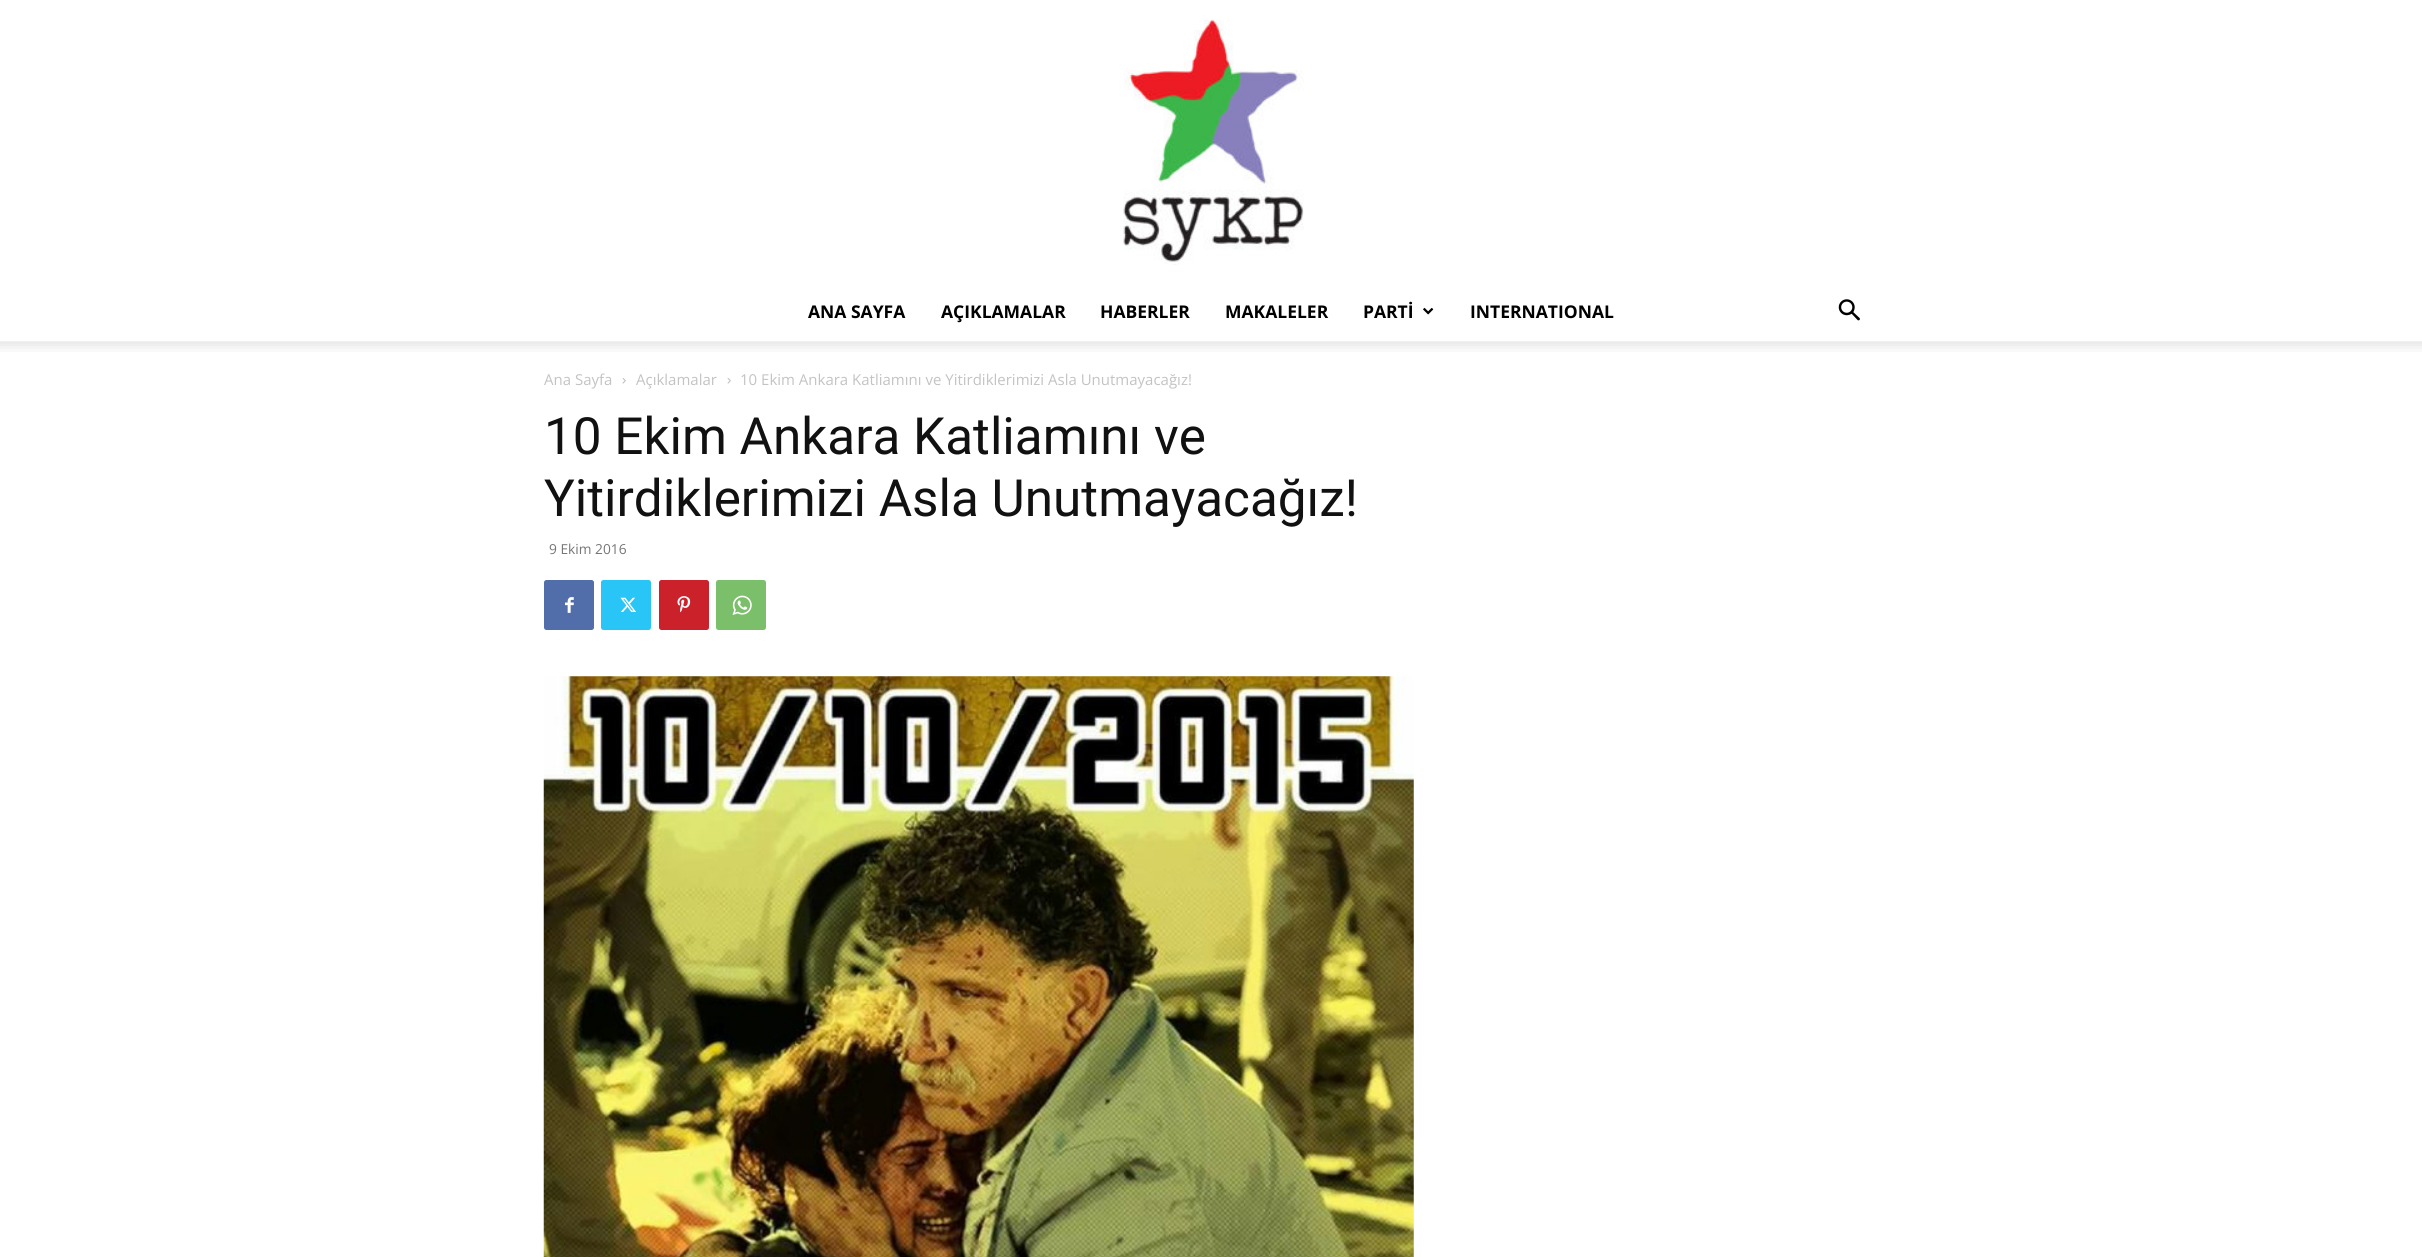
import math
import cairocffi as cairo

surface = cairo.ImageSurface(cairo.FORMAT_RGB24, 2422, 1257)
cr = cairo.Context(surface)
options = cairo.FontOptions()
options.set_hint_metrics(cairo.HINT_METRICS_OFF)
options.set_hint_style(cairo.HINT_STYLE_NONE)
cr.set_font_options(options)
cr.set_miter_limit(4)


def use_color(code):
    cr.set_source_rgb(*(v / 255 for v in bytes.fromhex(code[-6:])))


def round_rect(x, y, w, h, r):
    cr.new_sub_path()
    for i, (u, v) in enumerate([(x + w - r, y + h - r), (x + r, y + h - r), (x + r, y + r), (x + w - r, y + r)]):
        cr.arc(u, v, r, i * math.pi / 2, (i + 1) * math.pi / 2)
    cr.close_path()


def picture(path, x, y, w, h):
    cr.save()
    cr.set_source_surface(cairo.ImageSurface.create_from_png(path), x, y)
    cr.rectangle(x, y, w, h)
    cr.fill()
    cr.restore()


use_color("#ffffff")
cr.paint()
picture("img1.png", 1123, 19, 181, 246)
cr.select_font_face("Open Sans", cairo.FONT_SLANT_NORMAL, cairo.FONT_WEIGHT_BOLD)
cr.set_font_size(17.5)
use_color("#000000")
cr.move_to(808, 318)
cr.show_text("ANA SAYFA")
cr.move_to(941, 318)
cr.show_text("AÇIKLAMALAR")
cr.move_to(1100, 318)
cr.show_text("HABERLER")
cr.move_to(1225, 318)
cr.show_text("MAKALELER")
cr.move_to(1363, 318)
cr.show_text("PARTİ")
picture("img2.png", 1423, 307, 11, 8)
cr.move_to(1470, 318)
cr.show_text("INTERNATIONAL")
picture("img3.png", 1838, 299, 22, 22)
picture("img4.png", 0, 341, 2422, 11)
cr.select_font_face("Open Sans")
cr.set_font_size(15)
use_color("#c3c3c3")
cr.move_to(544, 385)
cr.show_text("Ana Sayfa")
picture("img5.png", 622, 378, 4, 6)
cr.move_to(636, 385)
cr.show_text("Açıklamalar")
picture("img5.png", 727, 378, 4, 6)
cr.move_to(740, 385)
cr.show_text("10 Ekim Ankara Katliamını ve Yitirdiklerimizi Asla Unutmayacağız!")
cr.select_font_face("Roboto")
cr.set_font_size(51.25)
use_color("#111111")
cr.move_to(544, 454)
cr.show_text("10 Ekim Ankara Katliamını ve")
cr.move_to(544, 516)
cr.show_text("Yitirdiklerimizi Asla Unutmayacağız!")
cr.select_font_face("Open Sans")
cr.set_font_size(13.75)
use_color("#767676")
cr.move_to(549, 554)
cr.show_text("9 Ekim 2016")
use_color("#516eab")
round_rect(544, 580, 50, 50, 2.5)
cr.fill()
picture("img6.png", 565, 597, 9, 16)
use_color("#29c5f6")
round_rect(601, 580, 50, 50, 2.5)
cr.fill()
picture("img7.png", 620, 597, 16, 15)
use_color("#ca212a")
round_rect(659, 580, 50, 50, 2.5)
cr.fill()
picture("img8.png", 677, 596, 14, 17)
use_color("#7bbf6a")
round_rect(716, 580, 50, 50, 2.5)
cr.fill()
picture("img9.png", 732, 595, 20, 20)
picture("img10.png", 543, 676, 871, 581)
surface.write_to_png("result.png")
